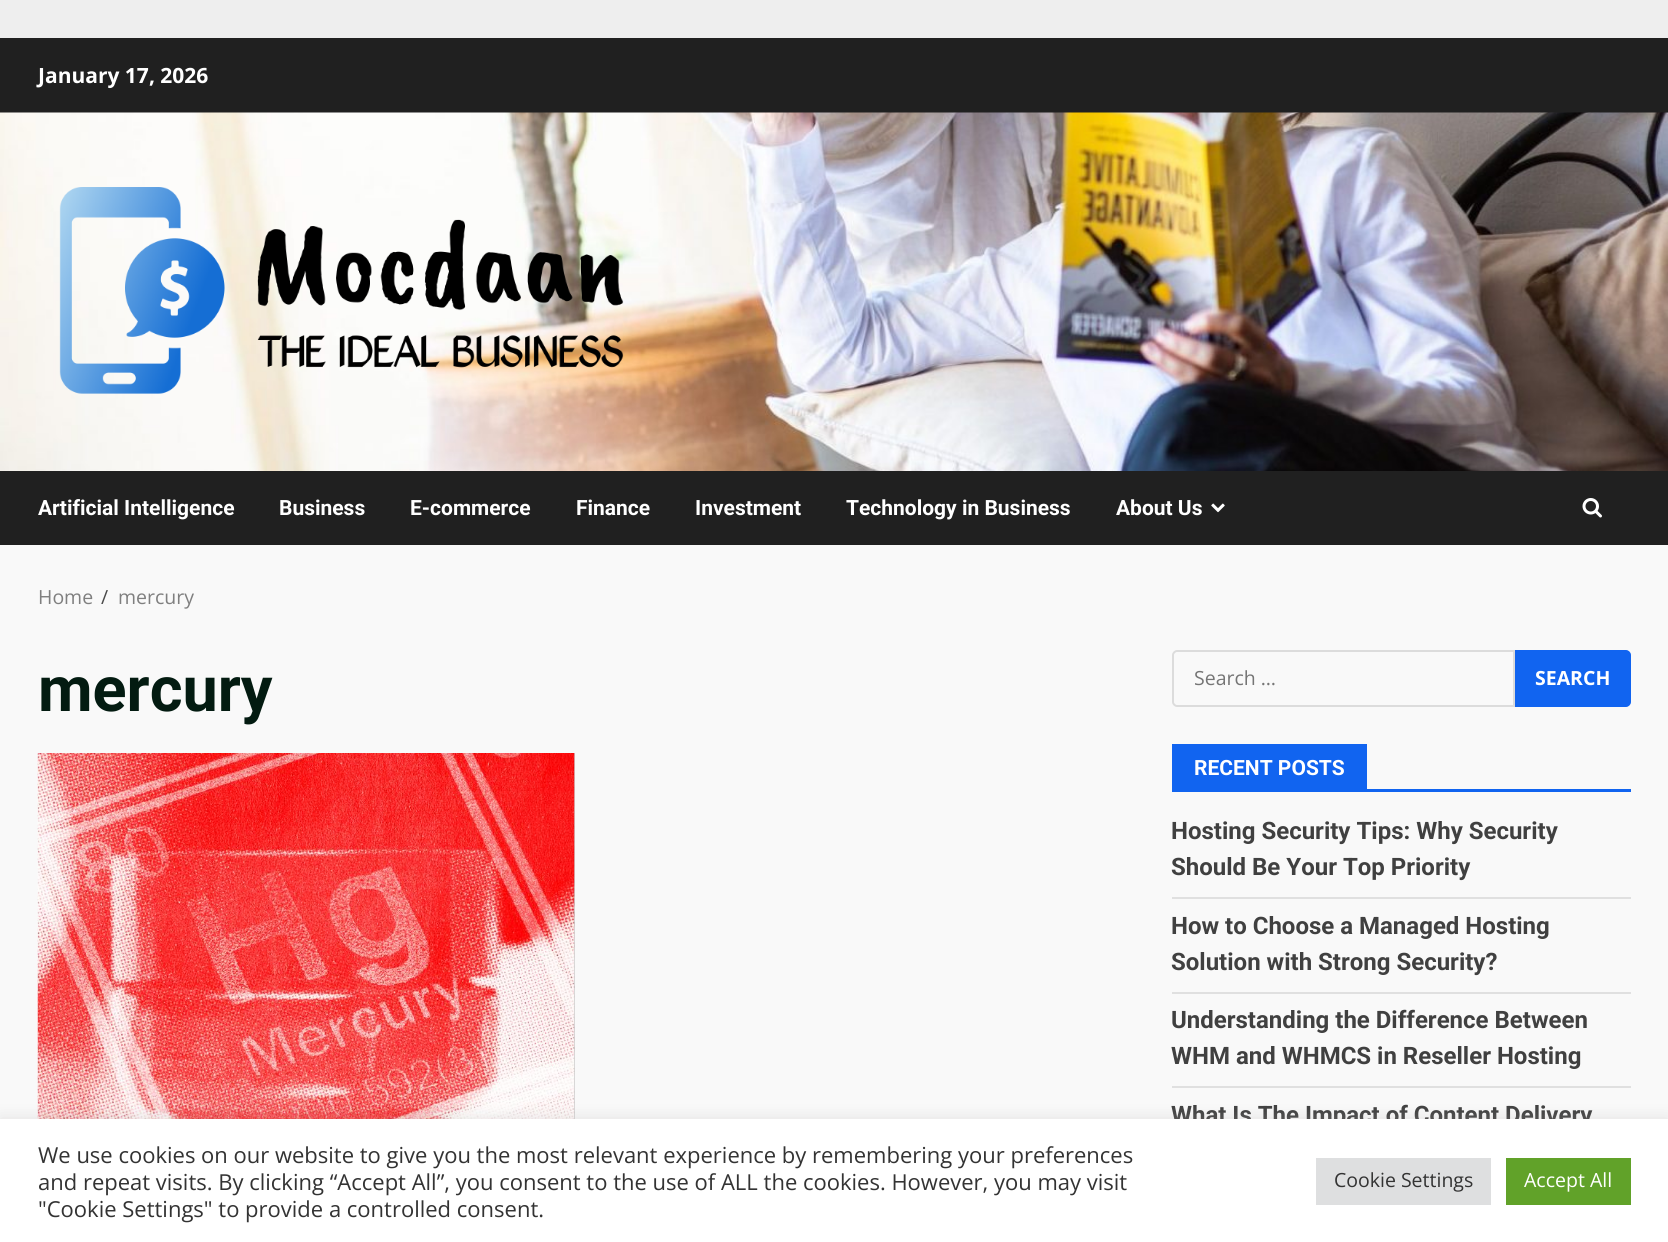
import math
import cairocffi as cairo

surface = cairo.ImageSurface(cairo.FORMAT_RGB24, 1668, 1242)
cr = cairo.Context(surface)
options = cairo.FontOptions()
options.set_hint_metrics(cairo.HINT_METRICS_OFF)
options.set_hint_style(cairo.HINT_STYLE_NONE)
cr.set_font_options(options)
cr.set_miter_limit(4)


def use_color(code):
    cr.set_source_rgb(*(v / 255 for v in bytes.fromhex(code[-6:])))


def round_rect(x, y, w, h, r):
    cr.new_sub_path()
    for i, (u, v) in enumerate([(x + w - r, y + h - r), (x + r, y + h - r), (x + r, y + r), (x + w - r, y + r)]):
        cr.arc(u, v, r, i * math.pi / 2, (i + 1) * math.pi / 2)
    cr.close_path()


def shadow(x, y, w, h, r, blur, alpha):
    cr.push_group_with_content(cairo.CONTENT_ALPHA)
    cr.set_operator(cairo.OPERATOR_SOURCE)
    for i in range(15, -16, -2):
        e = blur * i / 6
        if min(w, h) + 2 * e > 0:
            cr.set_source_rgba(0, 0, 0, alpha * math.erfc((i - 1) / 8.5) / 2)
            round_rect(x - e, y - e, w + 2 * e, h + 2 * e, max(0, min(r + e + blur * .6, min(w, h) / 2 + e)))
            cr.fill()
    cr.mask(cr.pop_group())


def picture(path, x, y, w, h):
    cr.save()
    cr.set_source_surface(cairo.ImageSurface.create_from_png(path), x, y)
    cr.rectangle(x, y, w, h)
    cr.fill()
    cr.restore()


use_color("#eeeeee")
cr.paint()
use_color("#f9f9f9")
cr.rectangle(0, 545, 1668, 574)
cr.fill()
use_color("#202020")
cr.rectangle(0, 38, 1668, 75)
cr.fill()
cr.select_font_face("Open Sans", cairo.FONT_SLANT_NORMAL, cairo.FONT_WEIGHT_BOLD)
cr.set_font_size(21)
use_color("#ffffff")
cr.move_to(38, 83)
cr.show_text("January 17, 2026")
picture("img1.png", 0, 112, 1668, 359)
picture("img2.png", 59, 187, 565, 207)
use_color("#202020")
cr.rectangle(0, 471, 1668, 74)
cr.fill()
cr.select_font_face("Roboto", cairo.FONT_SLANT_NORMAL, cairo.FONT_WEIGHT_BOLD)
use_color("#ffffff")
cr.move_to(38, 515)
cr.show_text("Artificial Intelligence")
cr.move_to(279, 515)
cr.show_text("Business")
cr.move_to(410, 515)
cr.show_text("E-commerce")
cr.move_to(576, 515)
cr.show_text("Finance")
cr.move_to(695, 515)
cr.show_text("Investment")
cr.move_to(846, 515)
cr.show_text("Technology in Business")
cr.move_to(1116, 515)
cr.show_text("About Us")
picture("img3.png", 1211, 503, 14, 10)
picture("img4.png", 1582, 498, 20, 20)
cr.select_font_face("Open Sans")
cr.set_font_size(19.5)
use_color("#7f7f7f")
cr.move_to(38, 604)
cr.show_text("Home")
use_color("#4a4a4a")
cr.move_to(101, 604)
cr.show_text("/")
use_color("#7f7f7f")
cr.move_to(118, 604)
cr.show_text("mercury")
cr.select_font_face("Roboto", cairo.FONT_SLANT_NORMAL, cairo.FONT_WEIGHT_BOLD)
cr.set_font_size(63)
use_color("#031b11")
cr.move_to(38, 711)
cr.show_text("mercury")
use_color("#cccccc")
cr.rectangle(574, 753, 1, 366)
cr.fill()
picture("img5.png", 37, 753, 538, 366)
cr.new_path()
cr.move_to(1177, 651)
cr.line_to(1514, 651)
cr.line_to(1514, 706)
cr.line_to(1177, 706)
cr.curve_to(1175, 706, 1173, 704, 1173, 702)
cr.line_to(1173, 655)
cr.curve_to(1173, 653, 1175, 651, 1177, 651)
cr.close_path()
use_color("#dcdcdc")
cr.stroke()
cr.select_font_face("Open Sans")
cr.set_font_size(19.5)
use_color("#757575")
cr.move_to(1194, 685)
cr.show_text("Search …")
use_color("#1164f0")
cr.new_path()
cr.move_to(1516, 651)
cr.line_to(1626, 651)
cr.curve_to(1628, 651, 1630, 653, 1630, 655)
cr.line_to(1630, 702)
cr.curve_to(1630, 704, 1628, 706, 1626, 706)
cr.line_to(1516, 706)
cr.close_path()
cr.fill_preserve()
cr.stroke()
cr.select_font_face("Open Sans", cairo.FONT_SLANT_NORMAL, cairo.FONT_WEIGHT_BOLD)
use_color("#ffffff")
cr.move_to(1535, 685)
cr.show_text("SEARCH")
use_color("#1164f0")
cr.rectangle(1172, 789, 459, 3)
cr.fill()
cr.rectangle(1172, 744, 195, 45)
cr.fill()
cr.select_font_face("Roboto", cairo.FONT_SLANT_NORMAL, cairo.FONT_WEIGHT_BOLD)
cr.set_font_size(21)
use_color("#ffffff")
cr.move_to(1194, 775)
cr.show_text("RECENT POSTS")
use_color("#e0e0e0")
cr.rectangle(1172, 897, 459, 2)
cr.fill()
cr.set_font_size(24)
use_color("#404040")
cr.move_to(1171, 839)
cr.show_text("Hosting Security Tips: Why Security")
cr.move_to(1171, 875)
cr.show_text("Should Be Your Top Priority")
use_color("#e0e0e0")
cr.rectangle(1172, 992, 459, 2)
cr.fill()
use_color("#404040")
cr.move_to(1171, 934)
cr.show_text("How to Choose a Managed Hosting")
cr.move_to(1171, 970)
cr.show_text("Solution with Strong Security?")
use_color("#e0e0e0")
cr.rectangle(1172, 1086, 459, 2)
cr.fill()
use_color("#404040")
cr.move_to(1171, 1028)
cr.show_text("Understanding the Difference Between")
cr.move_to(1171, 1064)
cr.show_text("WHM and WHMCS in Reseller Hosting")
cr.move_to(1171, 1123)
cr.show_text("What Is The Impact of Content Delivery")
use_color("#acabab")
shadow(0, 1118, 1668, 123, 0, 7.5, 0.3)
use_color("#ffffff")
cr.rectangle(0, 1119, 1668, 123)
cr.fill()
cr.select_font_face("Open Sans")
cr.set_font_size(22)
use_color("#333333")
cr.move_to(38, 1163)
cr.show_text("We use cookies on our website to give you the most relevant experience by remembering your preferences")
cr.move_to(38, 1190)
cr.show_text("and repeat visits. By clicking “Accept All”, you consent to the use of ALL the cookies. However, you may visit")
cr.move_to(38, 1217)
cr.show_text("\"Cookie Settings\" to provide a controlled consent.")
use_color("#dedfe0")
cr.rectangle(1316, 1158, 175, 47)
cr.fill()
cr.set_font_size(19.5)
use_color("#333333")
cr.move_to(1334, 1187)
cr.show_text("Cookie Settings")
use_color("#61a229")
cr.rectangle(1506, 1158, 125, 47)
cr.fill()
use_color("#ffffff")
cr.move_to(1524, 1187)
cr.show_text("Accept All")
surface.write_to_png("result.png")
